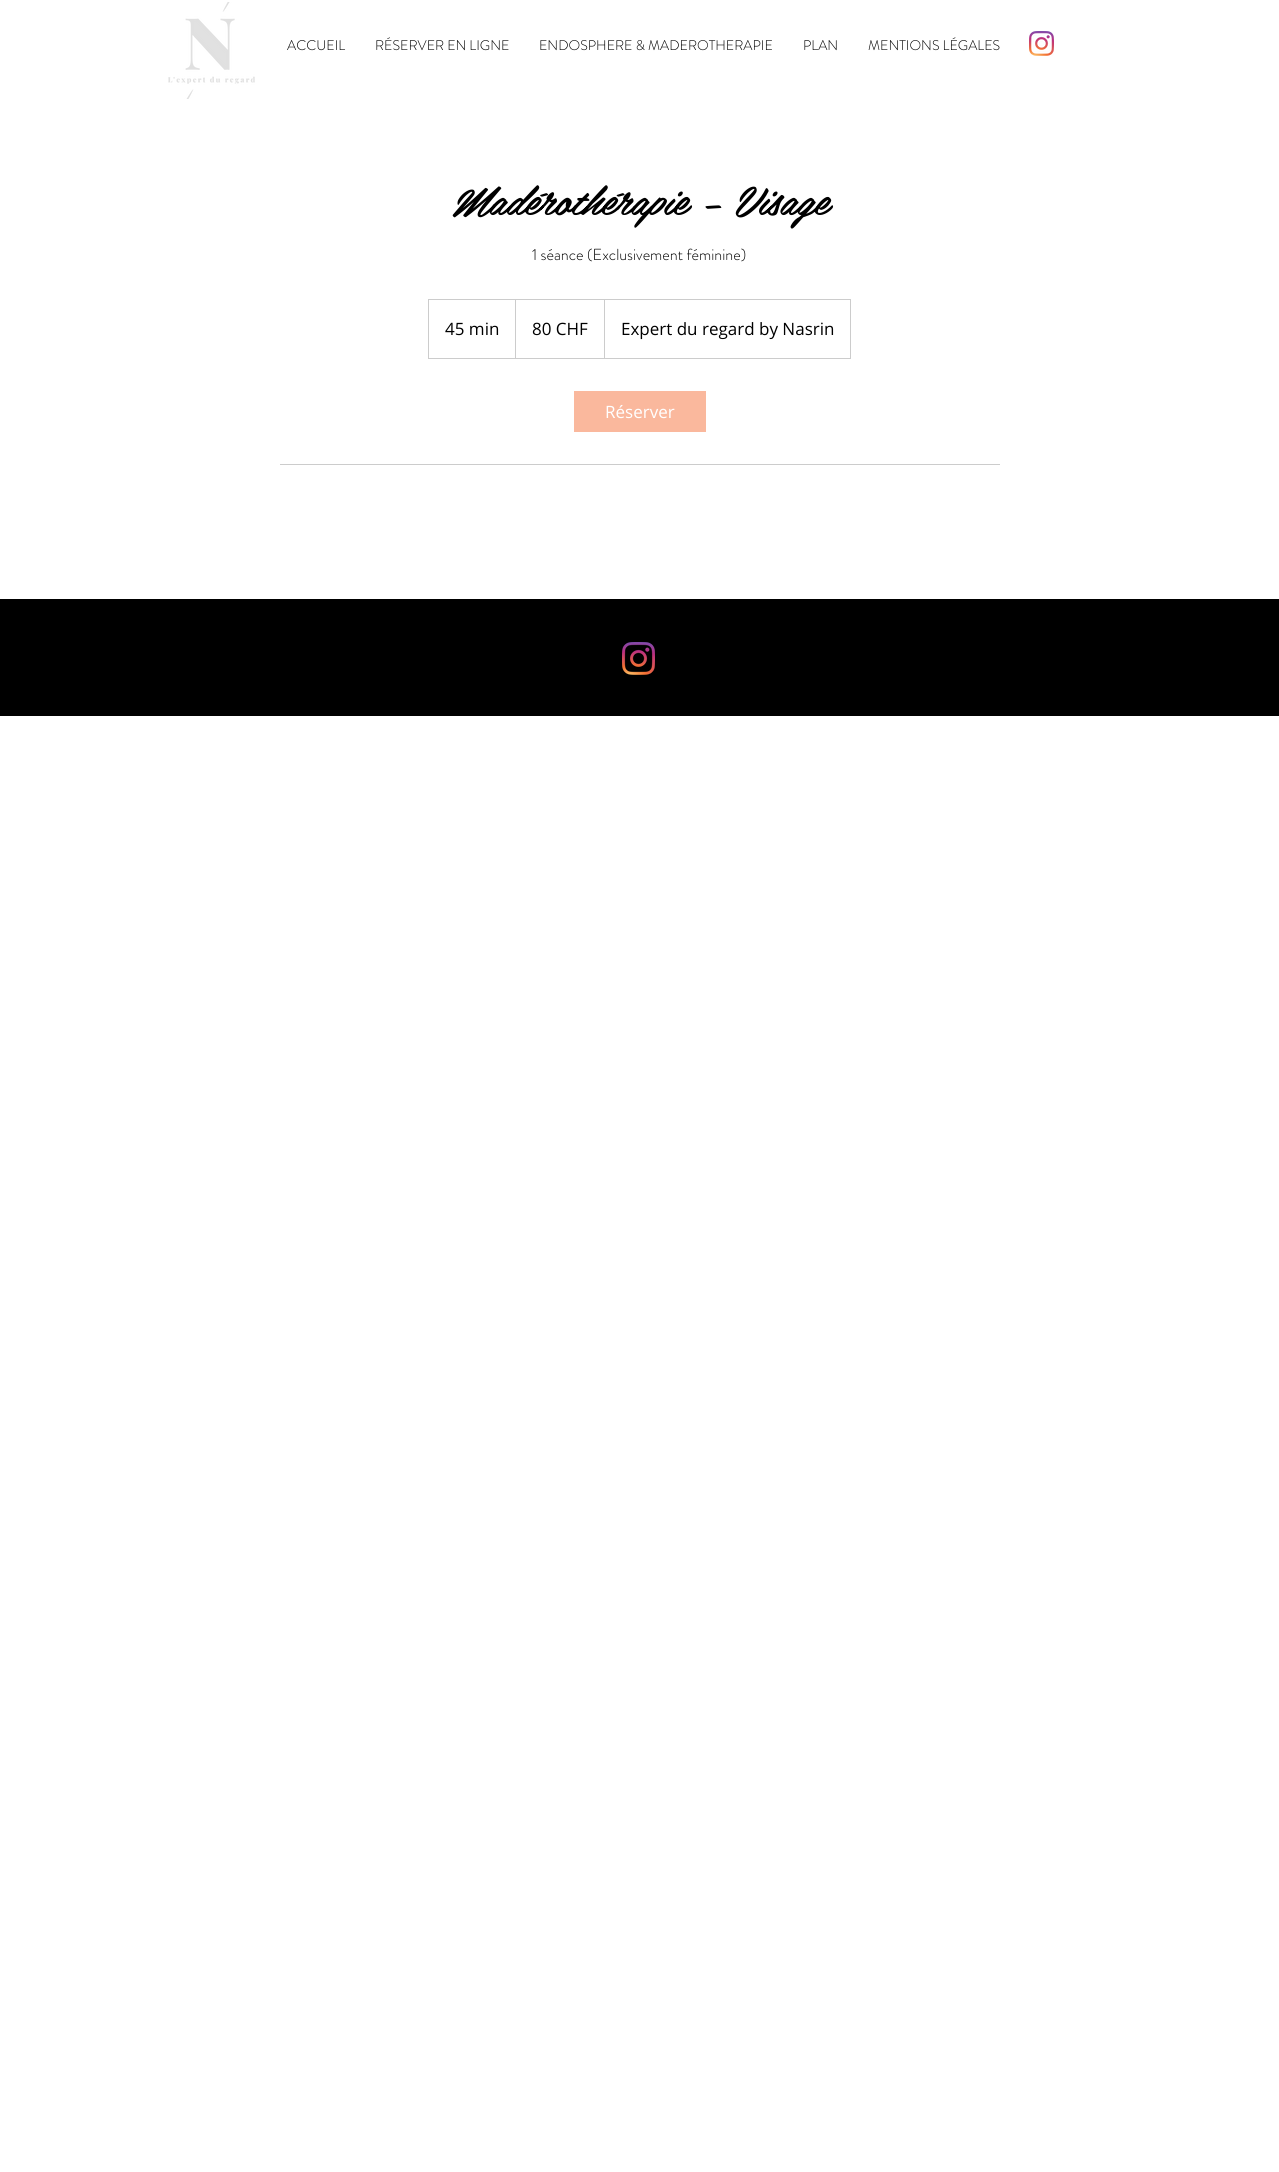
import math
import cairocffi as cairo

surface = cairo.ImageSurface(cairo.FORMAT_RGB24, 1279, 2172)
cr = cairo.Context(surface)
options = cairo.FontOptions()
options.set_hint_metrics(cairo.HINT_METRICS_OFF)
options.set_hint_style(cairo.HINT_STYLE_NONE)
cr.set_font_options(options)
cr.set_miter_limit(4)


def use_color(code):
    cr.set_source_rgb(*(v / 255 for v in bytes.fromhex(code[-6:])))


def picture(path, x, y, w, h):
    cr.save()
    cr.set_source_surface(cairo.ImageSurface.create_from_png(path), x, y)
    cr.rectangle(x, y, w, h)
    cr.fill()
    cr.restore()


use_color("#ffffff")
cr.paint()
picture("img1.png", 168, 2, 87, 97)
cr.select_font_face("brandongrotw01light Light")
cr.set_font_size(14)
use_color("#000000")
cr.move_to(287, 50)
cr.show_text("ACCUEIL")
cr.move_to(375, 50)
cr.show_text("RÉSERVER EN LIGNE")
cr.move_to(539, 50)
cr.show_text("ENDOSPHERE & MADEROTHERAPIE")
cr.move_to(803, 50)
cr.show_text("PLAN")
cr.move_to(868, 50)
cr.show_text("MENTIONS LÉGALES")
picture("img2.png", 1029, 31, 25, 25)
cr.select_font_face("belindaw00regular", cairo.FONT_SLANT_ITALIC)
cr.set_font_size(40)
cr.move_to(452, 215)
cr.show_text("Madérothérapie – Visage")
cr.select_font_face("brandongrotw01light Light")
cr.set_font_size(16)
cr.move_to(532, 260)
cr.show_text("1 séance (Exclusivement féminine)")
cr.rectangle(428.5, 299.5, 422, 59)
use_color("#cccccc")
cr.set_line_width(1)
cr.stroke()
cr.select_font_face("Open Sans")
cr.set_font_size(17)
use_color("#000000")
cr.move_to(445, 335)
cr.show_text("45 min")
use_color("#cccccc")
cr.new_path()
cr.move_to(515, 358)
cr.line_to(515, 299)
cr.line_to(516, 300)
cr.line_to(516, 358)
cr.close_path()
cr.fill()
use_color("#000000")
cr.move_to(532, 335)
cr.show_text("80 CHF")
use_color("#cccccc")
cr.new_path()
cr.move_to(604, 358)
cr.line_to(604, 299)
cr.line_to(605, 300)
cr.line_to(605, 358)
cr.close_path()
cr.fill()
use_color("#000000")
cr.move_to(621, 335)
cr.show_text("Expert du regard by Nasrin")
use_color("#fab89d")
cr.rectangle(574, 391, 132, 41)
cr.fill()
use_color("#ffffff")
cr.move_to(605, 418)
cr.show_text("Réserver")
use_color("#cccccc")
cr.rectangle(280, 464, 720, 1)
cr.fill()
use_color("#000000")
cr.rectangle(0, 599, 1279, 117)
cr.fill()
picture("img3.png", 622, 642, 33, 33)
surface.write_to_png("result.png")
